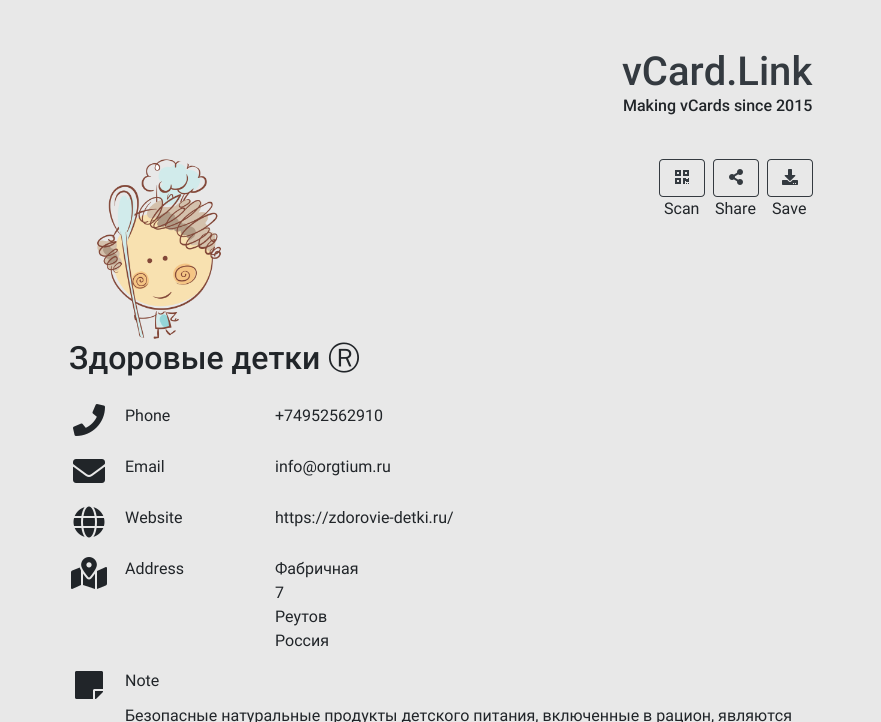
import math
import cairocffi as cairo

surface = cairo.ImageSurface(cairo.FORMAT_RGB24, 881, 722)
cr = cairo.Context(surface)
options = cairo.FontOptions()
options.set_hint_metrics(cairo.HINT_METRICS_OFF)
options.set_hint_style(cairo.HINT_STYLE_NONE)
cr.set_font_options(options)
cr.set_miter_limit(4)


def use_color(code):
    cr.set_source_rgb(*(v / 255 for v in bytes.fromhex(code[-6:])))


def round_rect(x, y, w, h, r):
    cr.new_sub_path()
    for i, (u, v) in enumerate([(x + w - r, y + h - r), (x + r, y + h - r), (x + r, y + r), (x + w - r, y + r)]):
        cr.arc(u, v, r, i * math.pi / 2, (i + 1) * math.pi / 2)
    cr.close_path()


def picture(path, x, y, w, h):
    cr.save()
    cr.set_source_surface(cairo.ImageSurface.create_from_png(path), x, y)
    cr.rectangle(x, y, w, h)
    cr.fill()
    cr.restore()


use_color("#e8e8e8")
cr.paint()
cr.select_font_face("Roboto Medium")
cr.set_font_size(40)
use_color("#343a40")
cr.move_to(622, 85)
cr.show_text("vCard.Link")
cr.set_font_size(16)
use_color("#212529")
cr.move_to(623, 111)
cr.show_text("Making vCards since 2015")
round_rect(659.5, 159.5, 45, 37, 3.5)
use_color("#343a40")
cr.set_line_width(1)
cr.stroke()
picture("img1.png", 675, 170, 14, 14)
cr.select_font_face("Roboto")
use_color("#212529")
cr.move_to(664, 214)
cr.show_text("Scan")
round_rect(713.5, 159.5, 45, 37, 3.5)
use_color("#343a40")
cr.stroke()
picture("img2.png", 729, 169, 14, 16)
use_color("#212529")
cr.move_to(715, 214)
cr.show_text("Share")
round_rect(767.5, 159.5, 45, 37, 3.5)
use_color("#343a40")
cr.stroke()
picture("img3.png", 782, 169, 16, 16)
use_color("#212529")
cr.move_to(772, 214)
cr.show_text("Save")
picture("img4.png", 97, 159, 124, 180)
cr.select_font_face("Roboto Medium")
cr.set_font_size(32)
cr.move_to(69, 369)
cr.show_text("Здоровые детки")
cr.select_font_face("WenQuanYi Zen Hei Medium")
cr.move_to(328, 369)
cr.show_text("Ⓡ")
picture("img5.png", 73, 404, 32, 32)
cr.select_font_face("Roboto")
cr.set_font_size(16)
cr.move_to(125, 421)
cr.show_text("Phone")
cr.move_to(275, 421)
cr.show_text("+74952562910")
picture("img6.png", 73, 459, 32, 24)
cr.move_to(125, 472)
cr.show_text("Email")
cr.move_to(275, 472)
cr.show_text("info@orgtium.ru")
picture("img7.png", 73, 506, 32, 32)
cr.move_to(125, 523)
cr.show_text("Website")
cr.move_to(275, 523)
cr.show_text("https://zdorovie-detki.ru/")
picture("img8.png", 71, 557, 36, 32)
cr.move_to(125, 574)
cr.show_text("Address")
cr.move_to(275, 574)
cr.show_text("Фабричная")
cr.move_to(275, 598)
cr.show_text("7")
cr.move_to(275, 622)
cr.show_text("Реутов")
cr.move_to(275, 646)
cr.show_text("Россия")
picture("img9.png", 75, 671, 28, 28)
cr.move_to(125, 686)
cr.show_text("Note")
cr.move_to(125, 721)
cr.show_text("Безопасные натуральные продукты детского питания, включенные в рацион, являются")
surface.write_to_png("result.png")
